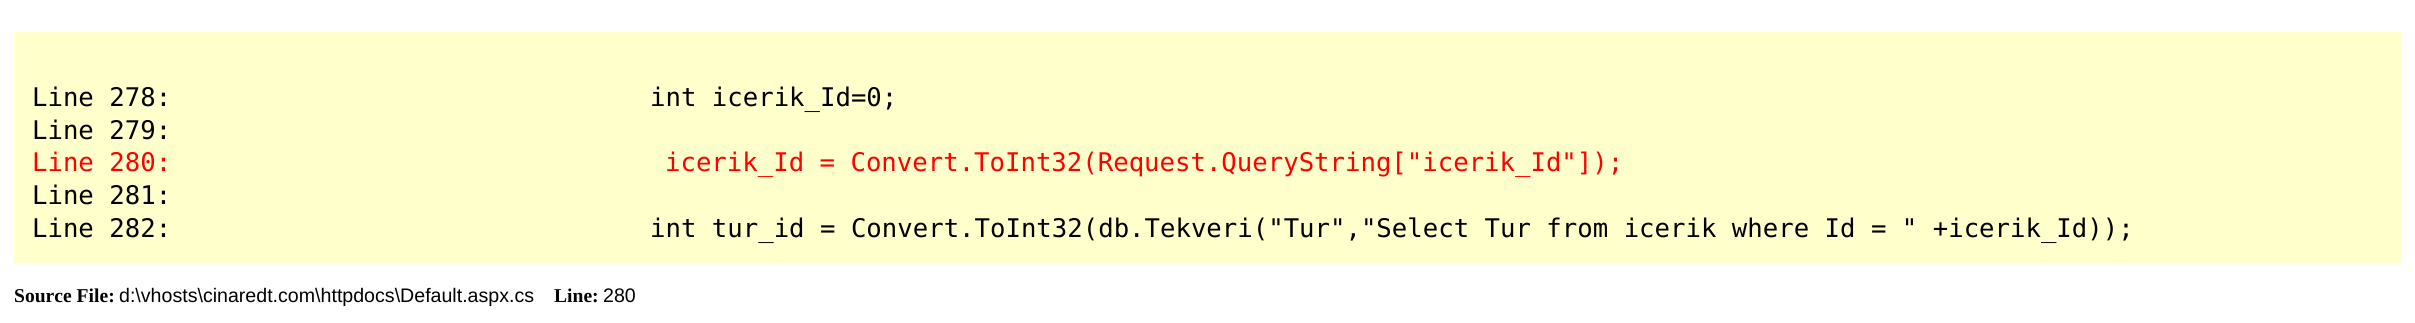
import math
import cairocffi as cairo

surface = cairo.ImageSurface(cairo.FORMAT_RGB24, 2415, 323)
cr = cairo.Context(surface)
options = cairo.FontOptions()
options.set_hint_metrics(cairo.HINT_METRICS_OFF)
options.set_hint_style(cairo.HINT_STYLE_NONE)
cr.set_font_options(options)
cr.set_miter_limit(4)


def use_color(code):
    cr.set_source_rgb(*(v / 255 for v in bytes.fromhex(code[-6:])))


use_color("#ffffff")
cr.paint()
use_color("#ffffcc")
cr.rectangle(14, 32, 2387, 231)
cr.fill()
cr.select_font_face("DejaVu Sans Mono")
cr.set_font_size(25.67)
use_color("#000000")
cr.move_to(32, 106)
cr.show_text("Line 278:")
cr.move_to(650, 106)
cr.show_text("int icerik_Id=0;")
cr.move_to(32, 139)
cr.show_text("Line 279:")
use_color("#ff0000")
cr.move_to(32, 171)
cr.show_text("Line 280:")
cr.move_to(665, 171)
cr.show_text("icerik_Id = Convert.ToInt32(Request.QueryString[\"icerik_Id\"]);")
use_color("#000000")
cr.move_to(32, 204)
cr.show_text("Line 281:")
cr.move_to(32, 237)
cr.show_text("Line 282:")
cr.move_to(650, 237)
cr.show_text("int tur_id = Convert.ToInt32(db.Tekveri(\"Tur\",\"Select Tur from icerik where Id = \" +icerik_Id));")
cr.select_font_face("Liberation Serif", cairo.FONT_SLANT_NORMAL, cairo.FONT_WEIGHT_BOLD)
cr.set_font_size(19.6)
cr.move_to(14, 302)
cr.show_text("Source File:")
cr.select_font_face("Liberation Sans")
cr.move_to(119, 302)
cr.show_text("d:\\vhosts\\cinaredt.com\\httpdocs\\Default.aspx.cs")
cr.select_font_face("Liberation Serif", cairo.FONT_SLANT_NORMAL, cairo.FONT_WEIGHT_BOLD)
cr.move_to(554, 302)
cr.show_text("Line:")
cr.select_font_face("Liberation Sans")
cr.move_to(603, 302)
cr.show_text("280")
surface.write_to_png("result.png")
